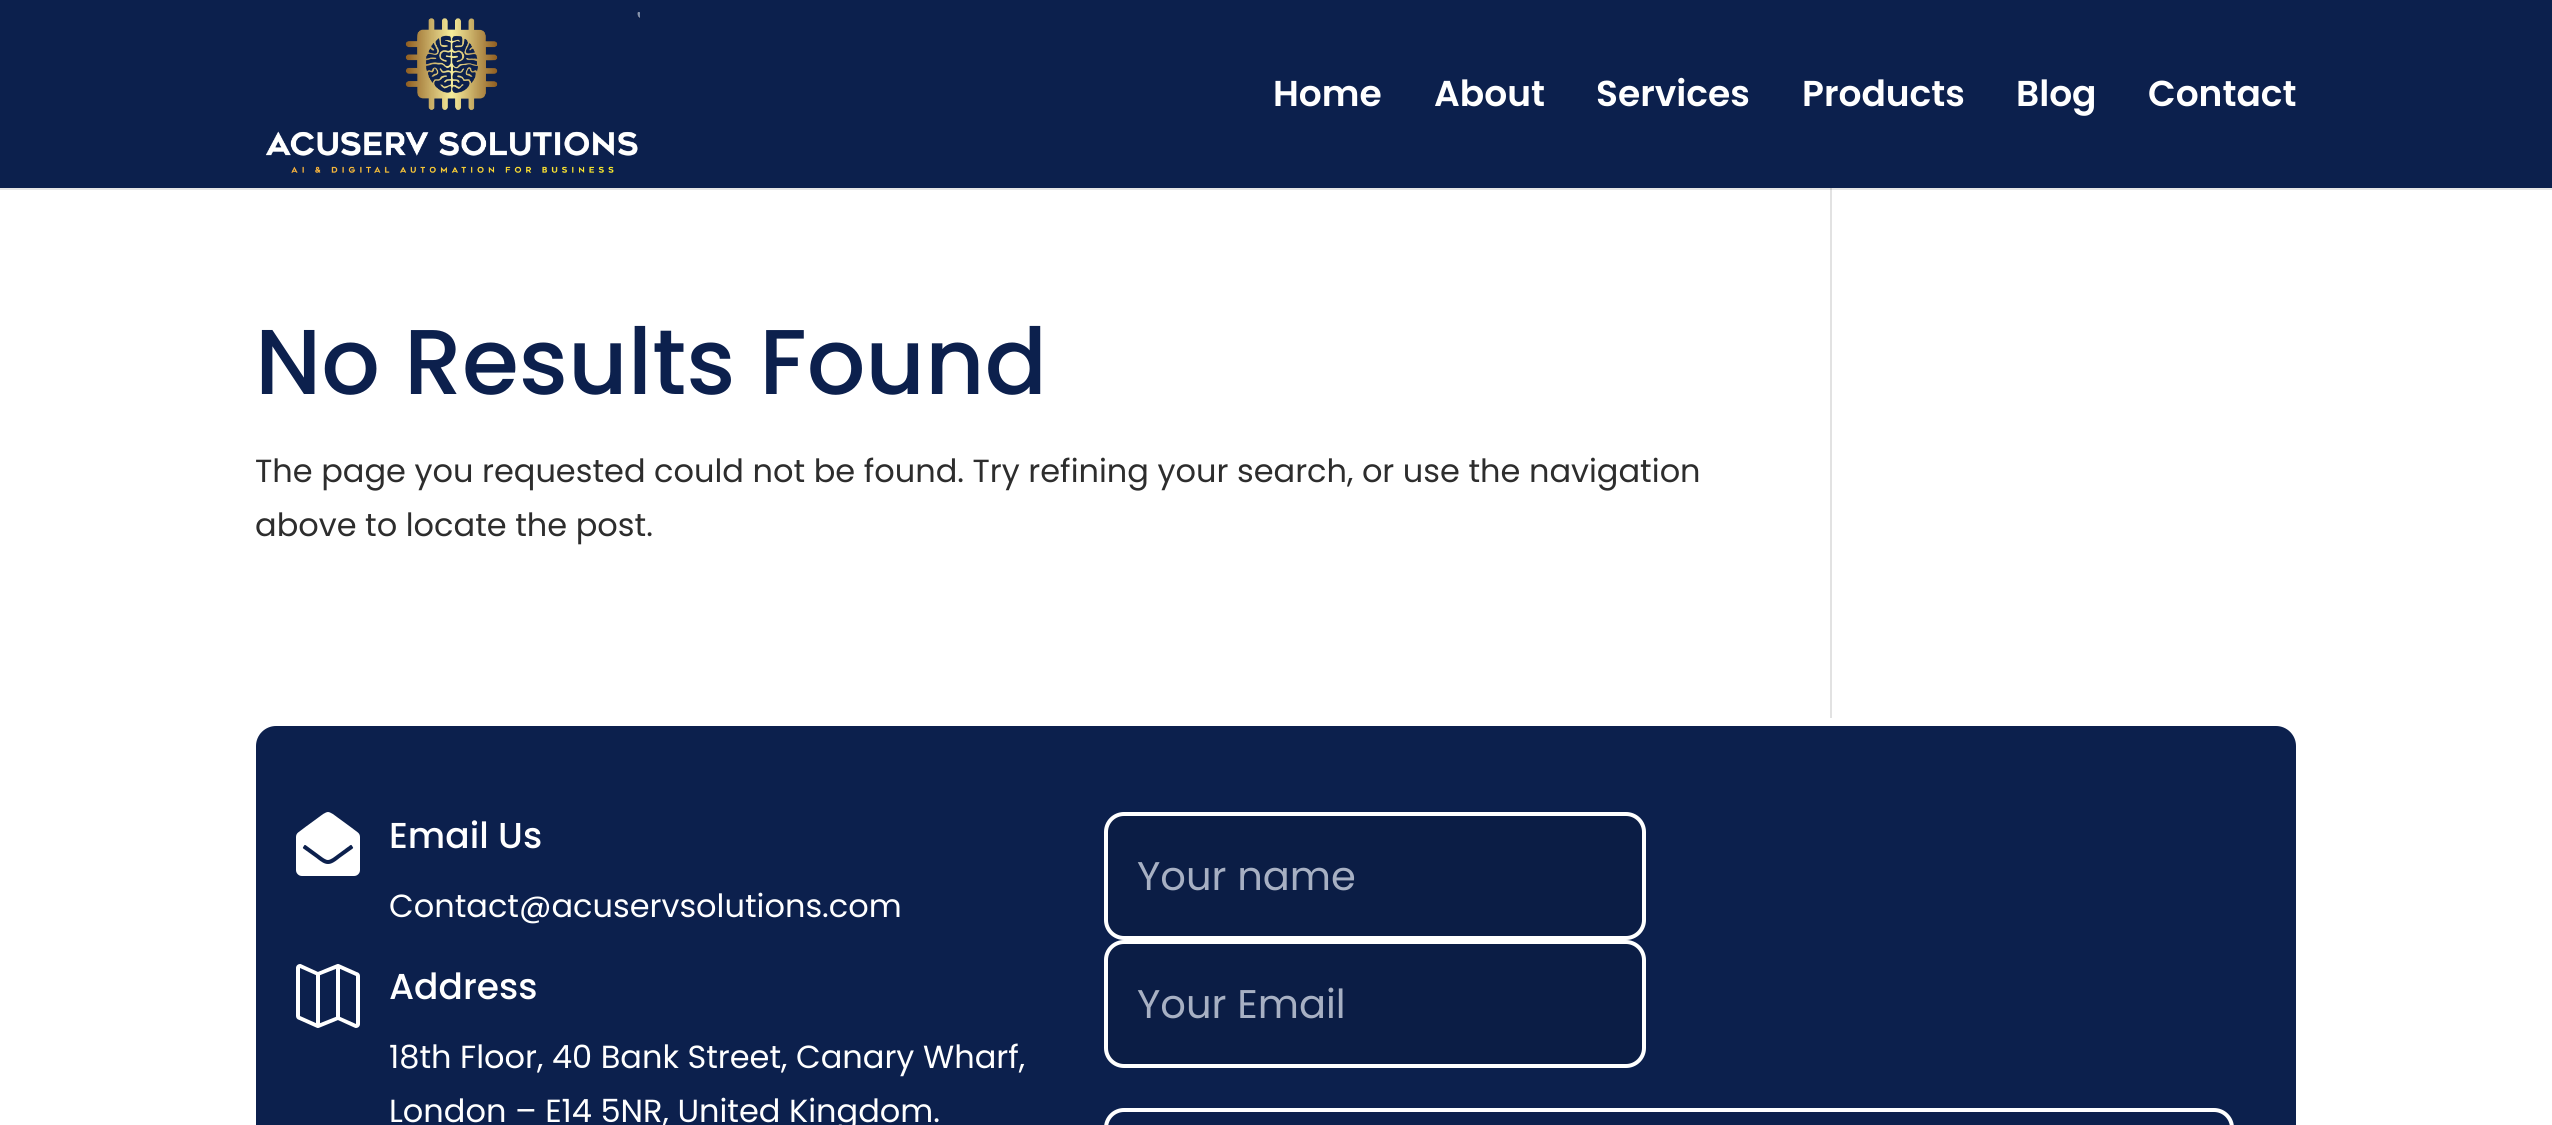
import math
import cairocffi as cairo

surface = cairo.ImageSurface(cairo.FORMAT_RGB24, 2552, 1125)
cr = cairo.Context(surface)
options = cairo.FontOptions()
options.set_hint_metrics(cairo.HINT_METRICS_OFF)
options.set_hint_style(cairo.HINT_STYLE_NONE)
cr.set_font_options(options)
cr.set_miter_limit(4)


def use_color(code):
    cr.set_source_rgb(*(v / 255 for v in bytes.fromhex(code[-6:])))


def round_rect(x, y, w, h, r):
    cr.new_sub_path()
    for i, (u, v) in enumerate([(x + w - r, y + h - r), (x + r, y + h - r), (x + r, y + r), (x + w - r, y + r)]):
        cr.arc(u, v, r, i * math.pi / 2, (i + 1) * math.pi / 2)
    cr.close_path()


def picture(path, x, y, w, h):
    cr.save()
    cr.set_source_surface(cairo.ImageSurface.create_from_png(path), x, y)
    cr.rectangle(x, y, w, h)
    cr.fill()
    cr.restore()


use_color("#ffffff")
cr.paint()
use_color("#e6e6e6")
cr.rectangle(0, 188, 2552, 2)
cr.fill()
use_color("#0c204d")
cr.rectangle(0, 0, 2552, 188)
cr.fill()
picture("img1.png", 265, 12, 375, 161)
cr.select_font_face("Poppins SemiBold")
cr.set_font_size(36)
use_color("#ffffff")
cr.move_to(1273, 106)
cr.show_text("Home")
cr.move_to(1434, 106)
cr.show_text("About")
cr.move_to(1596, 106)
cr.show_text("Services")
cr.move_to(1802, 106)
cr.show_text("Products")
cr.move_to(2016, 106)
cr.show_text("Blog")
cr.move_to(2148, 106)
cr.show_text("Contact")
cr.select_font_face("Poppins Medium")
cr.set_font_size(92)
use_color("#0c204d")
cr.move_to(255, 394)
cr.show_text("No Results Found")
cr.select_font_face("Poppins")
cr.set_font_size(32)
use_color("#2d2d2d")
cr.move_to(255, 482)
cr.show_text("The page you requested could not be found. Try refining your search, or use the navigation")
cr.move_to(255, 536)
cr.show_text("above to locate the post.")
use_color("#e2e2e2")
cr.rectangle(1830, 188, 2, 530)
cr.fill()
use_color("#cbcbcb")
cr.rectangle(1830, 188, 2, 2)
cr.fill()
use_color("#0c204d")
cr.new_path()
cr.move_to(276, 726)
cr.line_to(2276, 726)
cr.curve_to(2287, 726, 2296, 735, 2296, 746)
cr.line_to(2296, 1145)
cr.line_to(256, 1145)
cr.line_to(256, 746)
cr.curve_to(256, 735, 265, 726, 276, 726)
cr.close_path()
cr.fill()
picture("img2.png", 296, 812, 64, 64)
cr.select_font_face("Poppins Medium")
cr.set_font_size(36)
use_color("#ffffff")
cr.move_to(389, 848)
cr.show_text("Email Us")
cr.select_font_face("Poppins")
cr.set_font_size(32)
cr.move_to(389, 917)
cr.show_text("Contact@acuservsolutions.com")
picture("img3.png", 296, 964, 64, 64)
cr.select_font_face("Poppins Medium")
cr.set_font_size(36)
cr.move_to(389, 999)
cr.show_text("Address")
cr.select_font_face("Poppins")
cr.set_font_size(32)
cr.move_to(389, 1068)
cr.show_text("18th Floor, 40 Bank Street, Canary Wharf,")
cr.move_to(389, 1122)
cr.show_text("London – E14 5NR, United Kingdom.")
use_color("#0b1d45")
round_rect(1106, 814, 538, 124, 18)
cr.fill_preserve()
use_color("#ffffff")
cr.set_line_width(4)
cr.stroke()
cr.set_font_size(40)
use_color("#a7b0c3")
cr.move_to(1137, 890)
cr.show_text("Your name")
use_color("#0b1d45")
round_rect(1106, 942, 538, 124, 18)
cr.fill_preserve()
use_color("#ffffff")
cr.stroke()
use_color("#a7b0c3")
cr.move_to(1137, 1018)
cr.show_text("Your Email")
round_rect(1106, 1110, 1126, 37, 18)
use_color("#ffffff")
cr.stroke()
surface.write_to_png("result.png")
